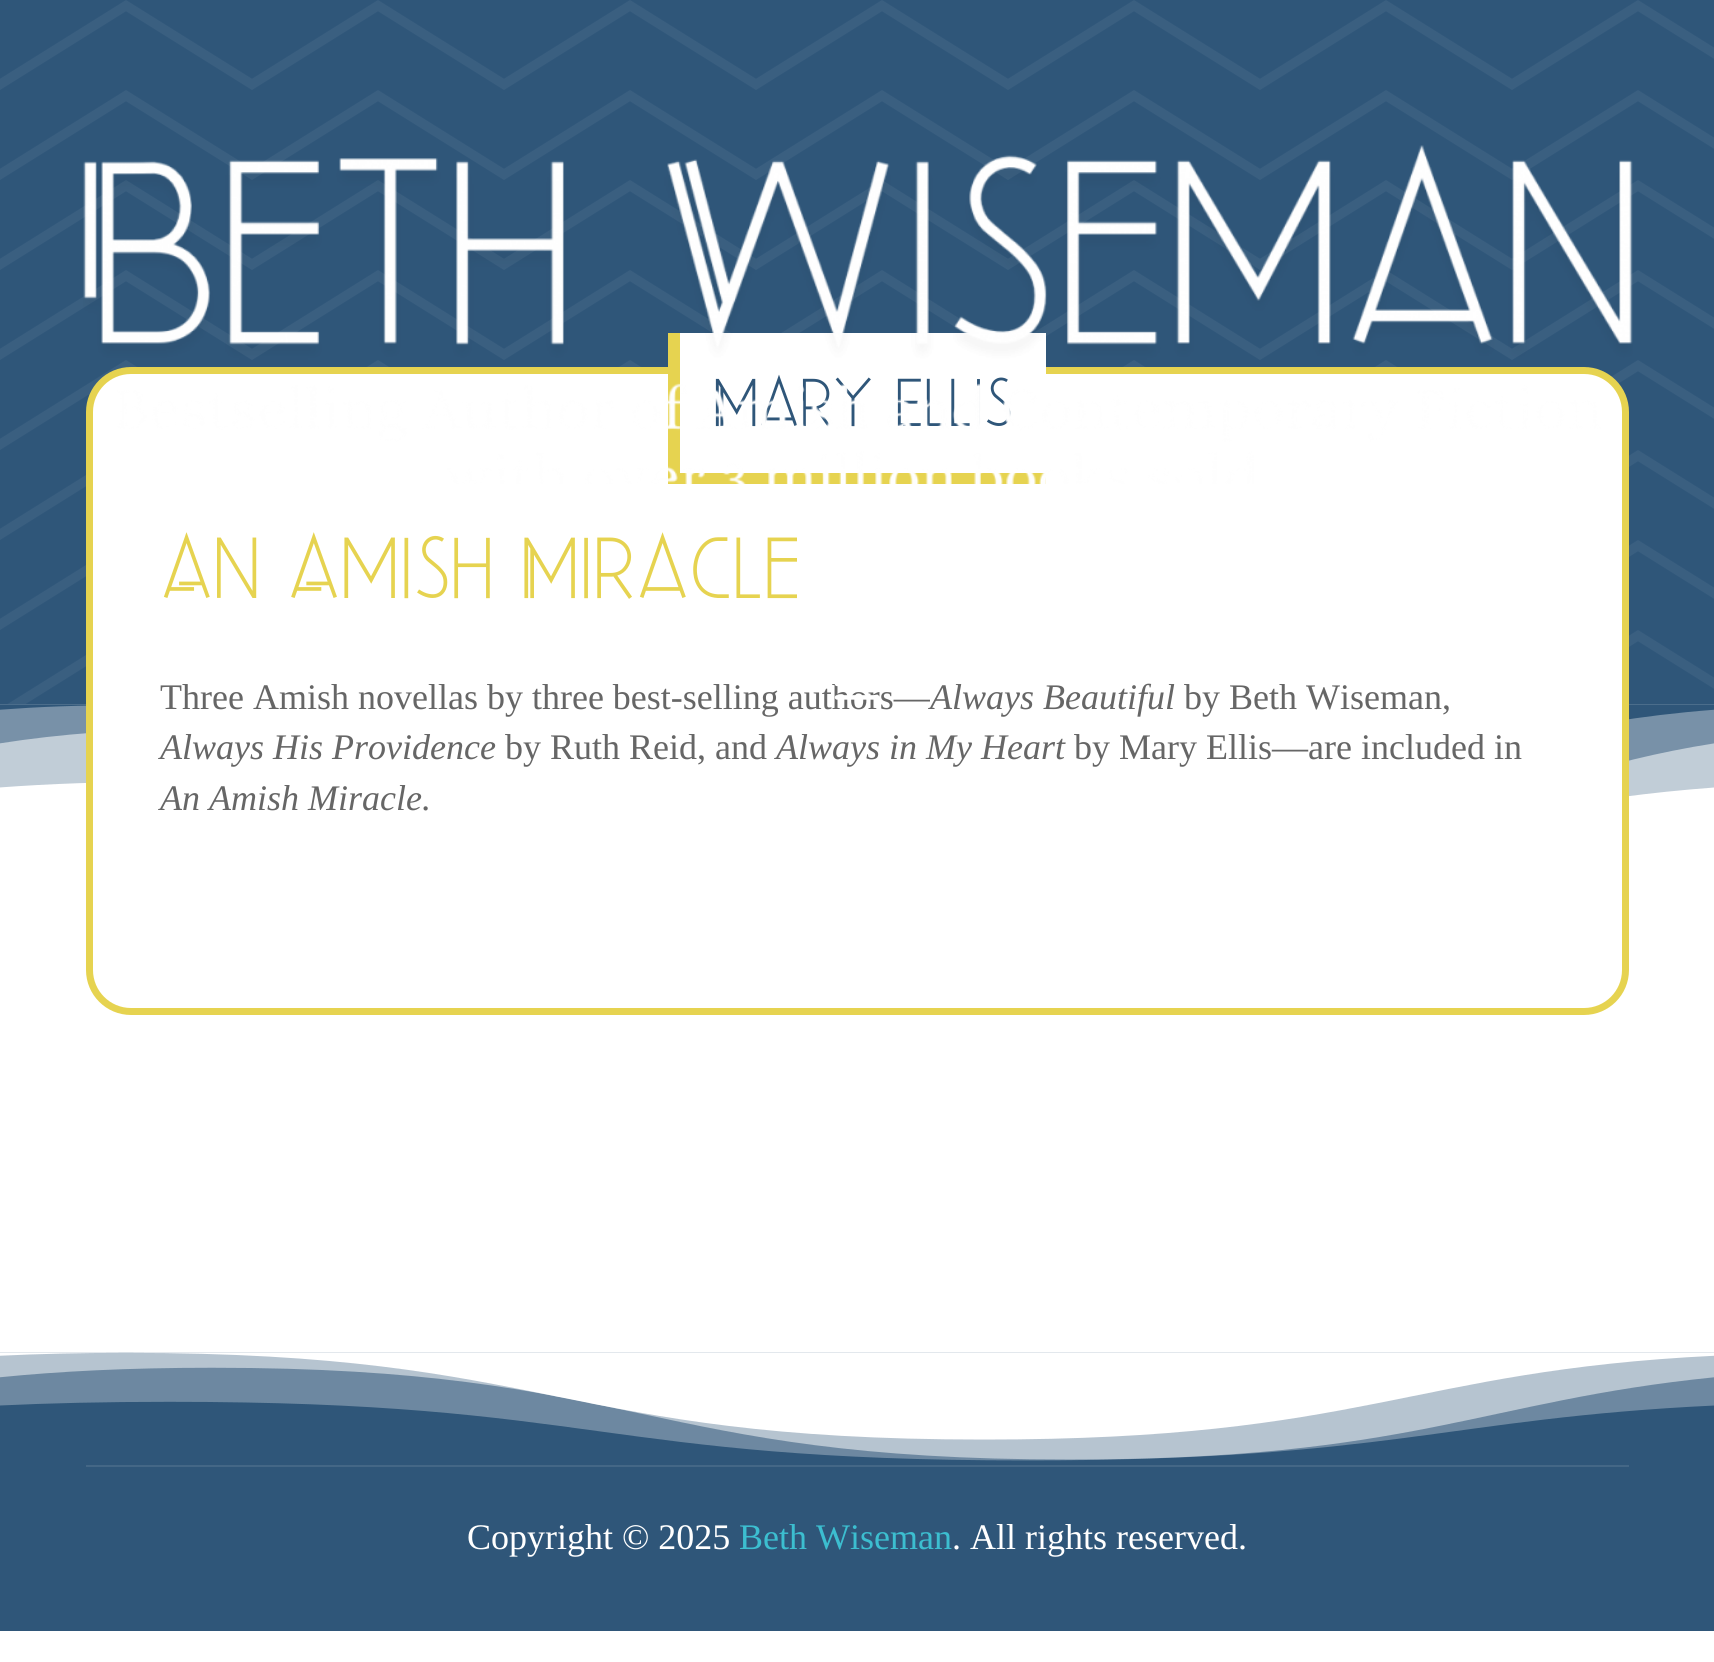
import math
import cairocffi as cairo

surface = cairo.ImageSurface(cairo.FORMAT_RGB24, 1714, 1662)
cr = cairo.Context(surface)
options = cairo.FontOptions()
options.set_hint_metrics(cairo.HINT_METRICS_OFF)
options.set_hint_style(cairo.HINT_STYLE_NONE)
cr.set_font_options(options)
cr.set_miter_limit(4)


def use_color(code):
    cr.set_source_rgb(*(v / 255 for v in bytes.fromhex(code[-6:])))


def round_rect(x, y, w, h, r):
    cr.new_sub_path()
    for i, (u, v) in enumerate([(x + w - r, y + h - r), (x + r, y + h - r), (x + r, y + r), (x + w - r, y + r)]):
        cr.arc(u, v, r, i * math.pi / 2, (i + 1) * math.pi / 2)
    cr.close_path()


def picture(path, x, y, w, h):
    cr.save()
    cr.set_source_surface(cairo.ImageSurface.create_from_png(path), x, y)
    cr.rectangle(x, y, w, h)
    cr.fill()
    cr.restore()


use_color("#ffffff")
cr.paint()
use_color("#2f5679")
cr.rectangle(0, 0, 1714, 704)
cr.fill()
picture("img3.png", 0, 0, 1714, 704)
picture("img4.png", 0, 704, 1714, 92)
use_color("#ffffff")
round_rect(89.5, 370.5, 1536, 641, 41.5)
cr.fill_preserve()
use_color("#e6d350")
cr.set_line_width(7)
cr.stroke()
use_color("#ffffff")
cr.rectangle(680, 333, 366, 41)
cr.fill()
use_color("#e6d350")
cr.rectangle(680, 473, 366, 11)
cr.fill()
cr.rectangle(668, 333, 12, 151)
cr.fill()
cr.select_font_face("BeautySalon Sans")
cr.set_font_size(72)
use_color("#2f5679")
cr.move_to(713, 426)
cr.show_text("Mary Ellis")
picture("img1.png", 83, 145, 1550, 339)
cr.select_font_face("Liberation Serif")
cr.set_font_size(36)
use_color("#666666")
cr.move_to(160, 709)
cr.show_text("Three Amish novellas by three best-selling authors—")
picture("img2.png", 834, 684, 46, 16)
cr.select_font_face("BeautySalon Sans")
cr.set_font_size(92.25)
use_color("#e6d350")
cr.move_to(160, 598)
cr.show_text("An Amish Miracle")
cr.select_font_face("Liberation Serif", cairo.FONT_SLANT_ITALIC)
cr.set_font_size(36)
use_color("#666666")
cr.move_to(930, 709)
cr.show_text("Always Beautiful")
cr.select_font_face("Liberation Serif")
cr.move_to(1184, 709)
cr.show_text("by Beth Wiseman,")
cr.select_font_face("Liberation Serif", cairo.FONT_SLANT_ITALIC)
cr.move_to(160, 759)
cr.show_text("Always His Providence")
cr.select_font_face("Liberation Serif")
cr.move_to(505, 759)
cr.show_text("by Ruth Reid, and")
cr.select_font_face("Liberation Serif", cairo.FONT_SLANT_ITALIC)
cr.move_to(776, 759)
cr.show_text("Always in My Heart")
cr.select_font_face("Liberation Serif")
cr.move_to(1074, 759)
cr.show_text("by Mary Ellis—are included in")
cr.select_font_face("Liberation Serif", cairo.FONT_SLANT_ITALIC)
cr.move_to(160, 810)
cr.show_text("An Amish Miracle.")
use_color("#2f5679")
cr.rectangle(0, 1352, 1714, 279)
cr.fill()
picture("img5.png", 0, 1352, 1714, 109)
use_color("#446786")
cr.rectangle(86, 1465, 1543, 2)
cr.fill()
cr.select_font_face("Liberation Serif")
use_color("#ffffff")
cr.move_to(467, 1549)
cr.show_text("Copyright © 2025")
use_color("#3cbed0")
cr.move_to(739, 1549)
cr.show_text("Beth Wiseman")
use_color("#ffffff")
cr.move_to(952, 1549)
cr.show_text(". All rights reserved.")
surface.write_to_png("result.png")
